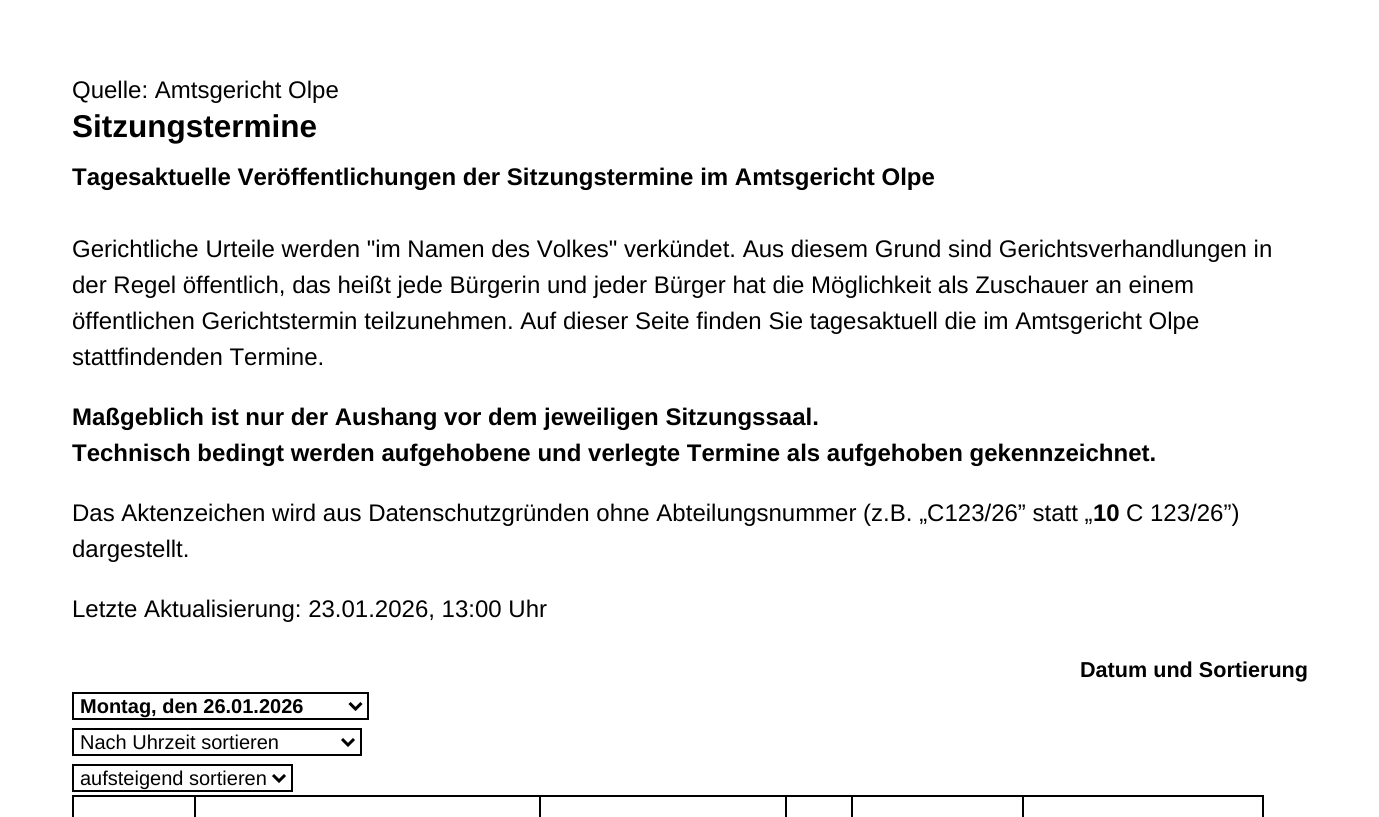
import math
import cairocffi as cairo

surface = cairo.ImageSurface(cairo.FORMAT_RGB24, 1379, 817)
cr = cairo.Context(surface)
options = cairo.FontOptions()
options.set_hint_metrics(cairo.HINT_METRICS_OFF)
options.set_hint_style(cairo.HINT_STYLE_NONE)
cr.set_font_options(options)
cr.set_miter_limit(4)


def use_color(code):
    cr.set_source_rgb(*(v / 255 for v in bytes.fromhex(code[-6:])))


use_color("#ffffff")
cr.paint()
cr.select_font_face("Liberation Sans")
cr.set_font_size(24)
use_color("#000000")
cr.move_to(72, 98)
cr.show_text("Quelle: Amtsgericht Olpe")
cr.select_font_face("Liberation Sans", cairo.FONT_SLANT_NORMAL, cairo.FONT_WEIGHT_BOLD)
cr.set_font_size(31.5)
cr.move_to(72, 137)
cr.show_text("Sitzungstermine")
cr.set_font_size(24)
cr.move_to(72, 185)
cr.show_text("Tagesaktuelle Veröffentlichungen der Sitzungstermine im Amtsgericht Olpe")
cr.select_font_face("Liberation Sans")
cr.move_to(72, 257)
cr.show_text("Gerichtliche Urteile werden \"im Namen des Volkes\" verkündet. Aus diesem Grund sind Gerichtsverhandlungen in")
cr.move_to(72, 293)
cr.show_text("der Regel öffentlich, das heißt jede Bürgerin und jeder Bürger hat die Möglichkeit als Zuschauer an einem")
cr.move_to(72, 329)
cr.show_text("öffentlichen Gerichtstermin teilzunehmen. Auf dieser Seite finden Sie tagesaktuell die im Amtsgericht Olpe")
cr.move_to(72, 365)
cr.show_text("stattfindenden Termine.")
cr.select_font_face("Liberation Sans", cairo.FONT_SLANT_NORMAL, cairo.FONT_WEIGHT_BOLD)
cr.move_to(72, 425)
cr.show_text("Maßgeblich ist nur der Aushang vor dem jeweiligen Sitzungssaal.")
cr.move_to(72, 461)
cr.show_text("Technisch bedingt werden aufgehobene und verlegte Termine als aufgehoben gekennzeichnet.")
cr.select_font_face("Liberation Sans")
cr.move_to(72, 521)
cr.show_text("Das Aktenzeichen wird aus Datenschutzgründen ohne Abteilungsnummer (z.B. „C123/26” statt „")
cr.select_font_face("Liberation Sans", cairo.FONT_SLANT_NORMAL, cairo.FONT_WEIGHT_BOLD)
cr.move_to(1093, 521)
cr.show_text("10")
cr.select_font_face("Liberation Sans")
cr.move_to(1126, 521)
cr.show_text("C 123/26”)")
cr.move_to(72, 557)
cr.show_text("dargestellt.")
cr.move_to(72, 617)
cr.show_text("Letzte Aktualisierung: 23.01.2026, 13:00 Uhr")
cr.select_font_face("Liberation Sans", cairo.FONT_SLANT_NORMAL, cairo.FONT_WEIGHT_BOLD)
cr.set_font_size(21.6)
cr.move_to(1080, 677)
cr.show_text("Datum und Sortierung")
cr.rectangle(73, 693, 295, 26)
cr.stroke()
cr.new_path()
cr.move_to(349.5, 703)
cr.line_to(355.5, 709)
cr.line_to(361.5, 703)
cr.set_line_width(3)
cr.stroke()
cr.set_font_size(20)
cr.move_to(80, 713)
cr.show_text("Montag, den 26.01.2026")
cr.rectangle(73, 729, 288, 26)
cr.set_line_width(2)
cr.stroke()
cr.new_path()
cr.move_to(342, 739)
cr.line_to(348, 745)
cr.line_to(354, 739)
cr.set_line_width(3)
cr.stroke()
cr.select_font_face("Liberation Sans")
cr.move_to(80, 749)
cr.show_text("Nach Uhrzeit sortieren")
cr.rectangle(73, 765, 219, 26)
cr.set_line_width(2)
cr.stroke()
cr.new_path()
cr.move_to(273, 775)
cr.line_to(279, 781)
cr.line_to(285, 775)
cr.set_line_width(3)
cr.stroke()
cr.move_to(80, 785)
cr.show_text("aufsteigend sortieren")
cr.rectangle(72, 795, 1191, 2)
cr.fill()
cr.rectangle(1262, 795, 2, 22)
cr.fill()
cr.rectangle(72, 795, 2, 22)
cr.fill()
cr.rectangle(194, 795, 2, 22)
cr.fill()
cr.rectangle(539, 795, 2, 22)
cr.fill()
cr.rectangle(785, 795, 2, 22)
cr.fill()
cr.rectangle(851, 795, 2, 22)
cr.fill()
cr.rectangle(1022, 795, 2, 22)
cr.fill()
surface.write_to_png("result.png")
